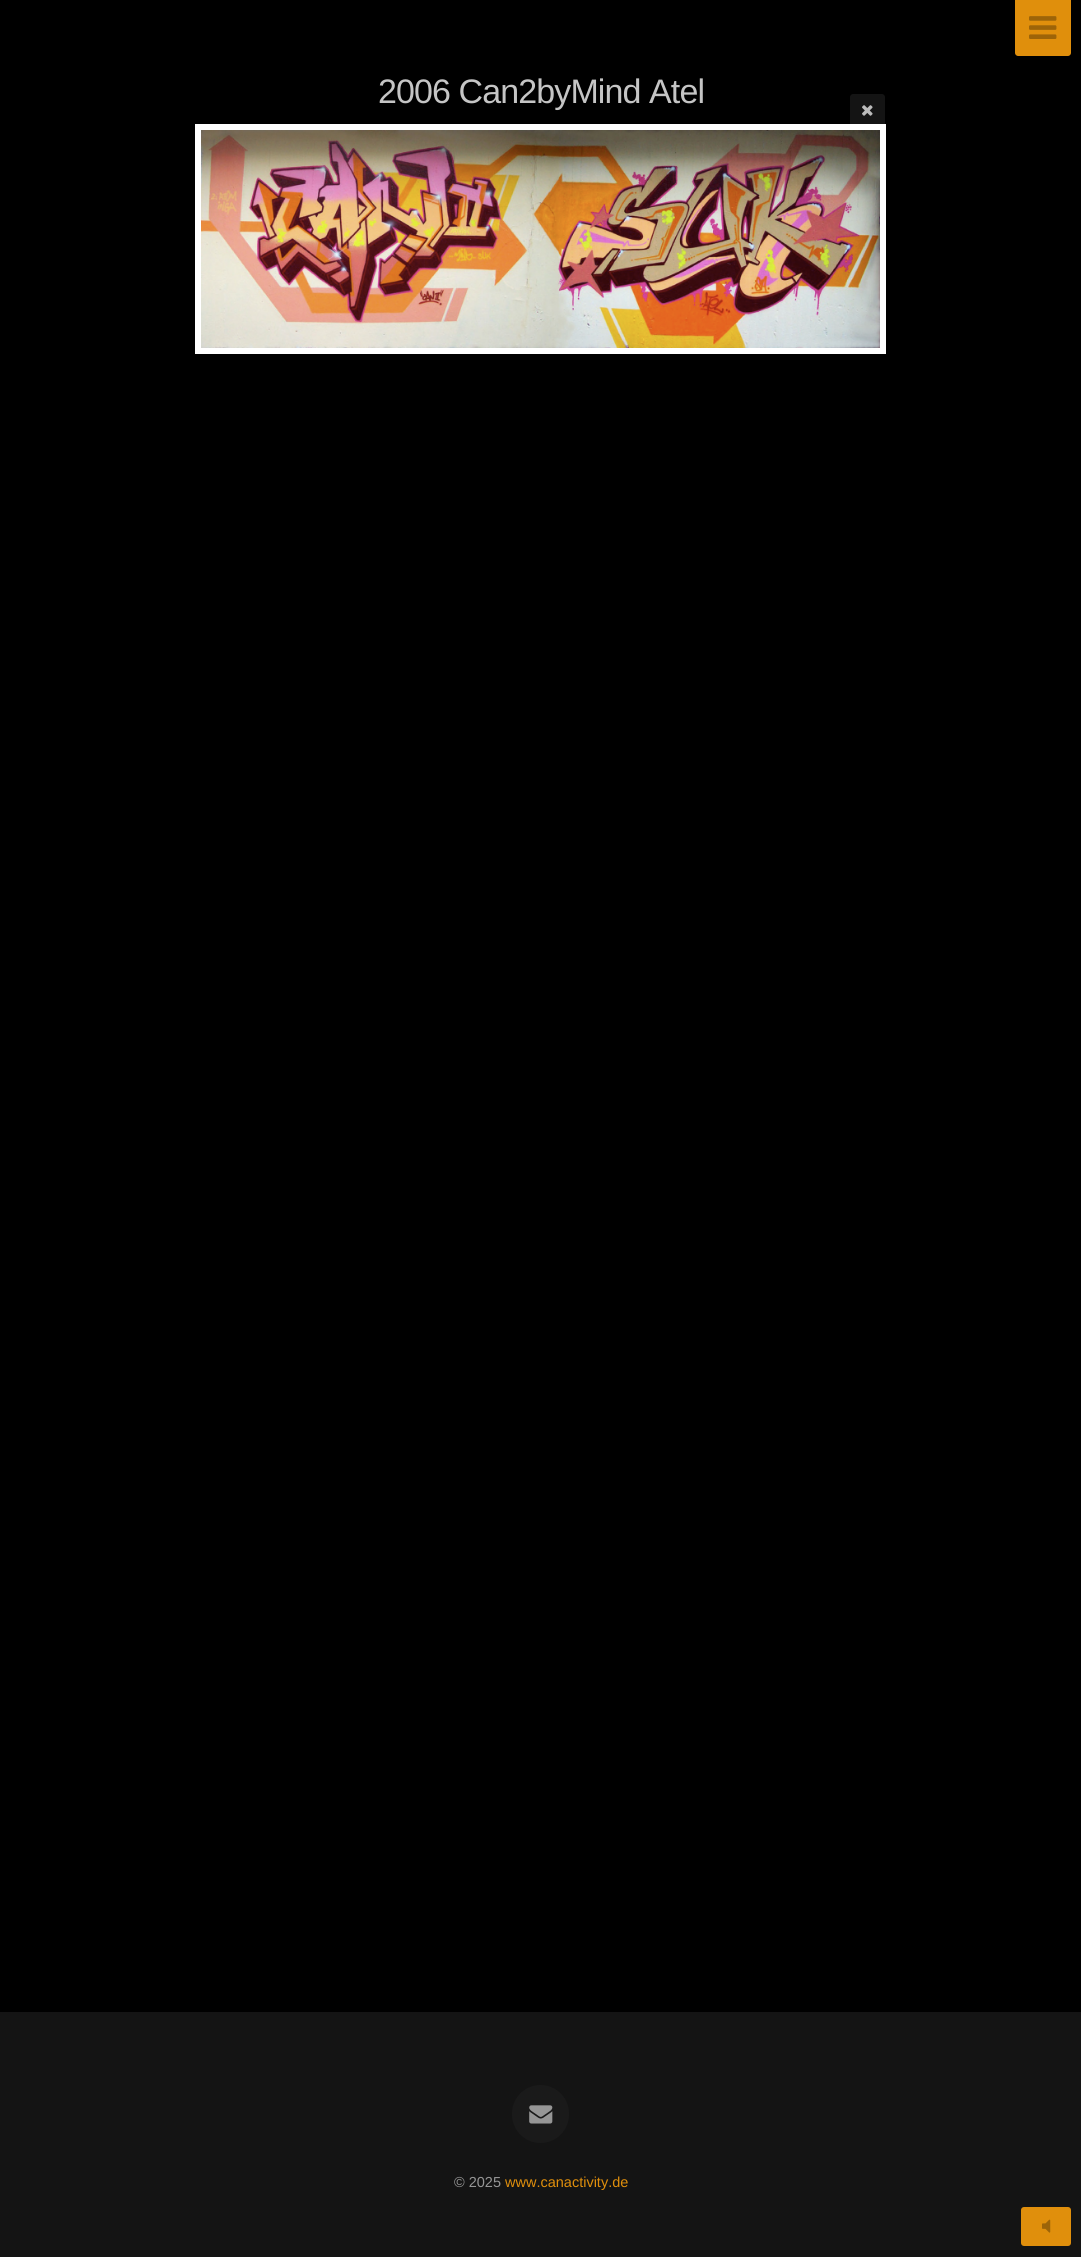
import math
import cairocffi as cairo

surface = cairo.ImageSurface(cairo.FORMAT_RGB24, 1081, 2257)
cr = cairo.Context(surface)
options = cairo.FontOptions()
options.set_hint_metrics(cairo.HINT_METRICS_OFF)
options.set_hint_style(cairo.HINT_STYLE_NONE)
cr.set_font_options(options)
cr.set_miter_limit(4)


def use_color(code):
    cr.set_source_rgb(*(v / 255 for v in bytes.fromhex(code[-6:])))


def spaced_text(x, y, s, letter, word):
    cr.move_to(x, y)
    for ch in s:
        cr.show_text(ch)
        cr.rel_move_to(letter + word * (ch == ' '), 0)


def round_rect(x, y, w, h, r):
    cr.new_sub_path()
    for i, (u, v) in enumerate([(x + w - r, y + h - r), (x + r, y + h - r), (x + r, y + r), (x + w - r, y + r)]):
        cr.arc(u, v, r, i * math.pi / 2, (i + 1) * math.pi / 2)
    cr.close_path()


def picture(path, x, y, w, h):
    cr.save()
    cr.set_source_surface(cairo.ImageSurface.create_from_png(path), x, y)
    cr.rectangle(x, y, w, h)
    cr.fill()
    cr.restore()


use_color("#141414")
cr.paint()
use_color("#000000")
cr.rectangle(0, 0, 1081, 2012)
cr.fill()
use_color("#e08f0c")
cr.new_path()
cr.move_to(1015, 0)
cr.line_to(1071, 0)
cr.line_to(1071, 53)
cr.curve_to(1071, 54.5, 1069.5, 56, 1068, 56)
cr.line_to(1018, 56)
cr.curve_to(1016.5, 56, 1015, 54.5, 1015, 53)
cr.close_path()
cr.fill()
picture("img1.png", 1029, 16, 28, 23)
cr.select_font_face("Liberation Sans")
cr.set_font_size(34)
use_color("#c5c5c5")
spaced_text(378, 103, "2006 Can2byMind Atel", -0.9, 0)
use_color("#141414")
cr.new_path()
cr.move_to(853, 94)
cr.line_to(882, 94)
cr.curve_to(883.5, 94, 885, 95.5, 885, 97)
cr.line_to(885, 124)
cr.line_to(850, 124)
cr.line_to(850, 97)
cr.curve_to(850, 95.5, 851.5, 94, 853, 94)
cr.close_path()
cr.fill()
picture("img2.png", 862, 105, 11, 11)
cr.rectangle(198, 127, 685, 224)
use_color("#ffffff")
cr.set_line_width(6)
cr.stroke()
picture("img3.png", 201, 130, 679, 218)
use_color("#1a1a1a")
round_rect(512, 2085, 57, 58, 28.5)
cr.fill()
picture("img4.png", 529, 2105, 24, 19)
cr.set_font_size(14.5)
use_color("#969696")
cr.move_to(454, 2187)
cr.show_text("© 2025")
use_color("#e08f0c")
cr.move_to(505, 2187)
cr.show_text("www.canactivity.de")
round_rect(1021, 2207, 50, 39, 3)
cr.fill()
picture("img5.png", 1042, 2219, 9, 14)
surface.write_to_png("result.png")
